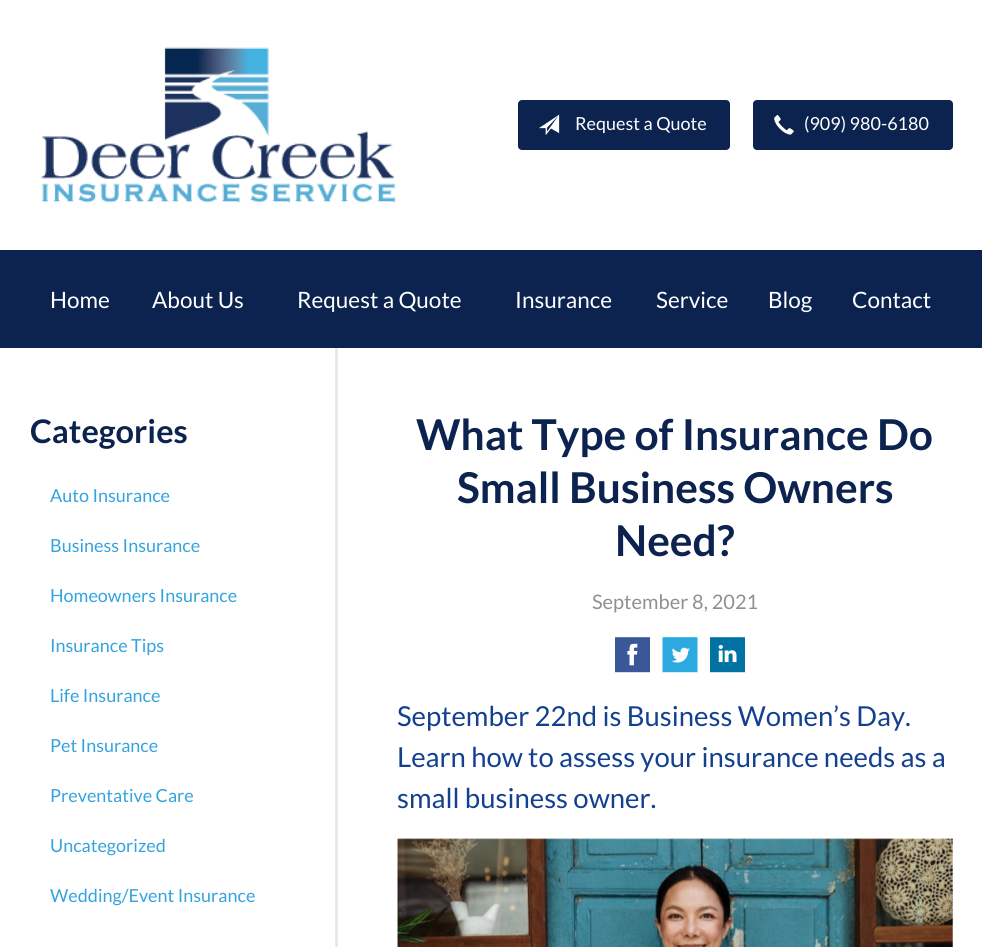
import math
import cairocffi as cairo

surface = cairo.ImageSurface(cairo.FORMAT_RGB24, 982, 947)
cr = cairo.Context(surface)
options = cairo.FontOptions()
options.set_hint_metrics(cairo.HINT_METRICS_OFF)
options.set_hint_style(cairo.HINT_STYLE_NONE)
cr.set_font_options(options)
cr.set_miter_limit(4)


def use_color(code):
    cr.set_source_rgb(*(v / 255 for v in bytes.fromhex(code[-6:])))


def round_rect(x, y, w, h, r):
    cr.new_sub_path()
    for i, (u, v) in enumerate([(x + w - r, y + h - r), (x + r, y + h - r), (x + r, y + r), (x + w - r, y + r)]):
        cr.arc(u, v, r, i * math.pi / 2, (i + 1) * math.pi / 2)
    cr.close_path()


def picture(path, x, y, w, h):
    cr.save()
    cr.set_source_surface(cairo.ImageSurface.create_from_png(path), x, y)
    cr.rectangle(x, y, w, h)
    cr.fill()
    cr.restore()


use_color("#ffffff")
cr.paint()
picture("img1.png", 41, 47, 355, 156)
use_color("#0b234e")
round_rect(518, 100, 212, 50, 4)
cr.fill()
picture("img2.png", 539, 114, 21, 21)
cr.select_font_face("Lato")
cr.set_font_size(18)
use_color("#ffffff")
cr.move_to(575, 130)
cr.show_text("Request a Quote")
use_color("#0b234e")
round_rect(753, 100, 200, 50, 4)
cr.fill()
picture("img3.png", 774, 115, 20, 20)
use_color("#ffffff")
cr.move_to(804, 130)
cr.show_text("(909) 980-6180")
use_color("#0b234e")
cr.rectangle(0, 250, 982, 98)
cr.fill()
cr.set_font_size(22.5)
use_color("#ffffff")
cr.move_to(50, 308)
cr.show_text("Home")
cr.move_to(152, 308)
cr.show_text("About Us")
cr.move_to(297, 308)
cr.show_text("Request a Quote")
cr.move_to(515, 308)
cr.show_text("Insurance")
cr.move_to(656, 308)
cr.show_text("Service")
cr.move_to(768, 308)
cr.show_text("Blog")
cr.move_to(852, 308)
cr.show_text("Contact")
use_color("#ebeaea")
cr.rectangle(335, 348, 3, 599)
cr.fill()
cr.select_font_face("Lato", cairo.FONT_SLANT_NORMAL, cairo.FONT_WEIGHT_BOLD)
cr.set_font_size(32.5)
use_color("#0b234e")
cr.move_to(30, 443)
cr.show_text("Categories")
cr.select_font_face("Lato")
cr.set_font_size(18)
use_color("#35a3dd")
cr.move_to(50, 502)
cr.show_text("Auto Insurance")
cr.move_to(50, 552)
cr.show_text("Business Insurance")
cr.move_to(50, 602)
cr.show_text("Homeowners Insurance")
cr.move_to(50, 652)
cr.show_text("Insurance Tips")
cr.move_to(50, 702)
cr.show_text("Life Insurance")
cr.move_to(50, 752)
cr.show_text("Pet Insurance")
cr.move_to(50, 802)
cr.show_text("Preventative Care")
cr.move_to(50, 852)
cr.show_text("Uncategorized")
cr.move_to(50, 902)
cr.show_text("Wedding/Event Insurance")
cr.select_font_face("Lato", cairo.FONT_SLANT_NORMAL, cairo.FONT_WEIGHT_BOLD)
cr.set_font_size(42.5)
use_color("#0b234e")
cr.move_to(416, 450)
cr.show_text("What Type of Insurance Do")
cr.move_to(457, 503)
cr.show_text("Small Business Owners")
cr.move_to(615, 556)
cr.show_text("Need?")
cr.select_font_face("Lato")
cr.set_font_size(20)
use_color("#909090")
cr.move_to(592, 609)
cr.show_text("September 8, 2021")
picture("img4.png", 615, 637, 35, 36)
picture("img5.png", 662, 637, 36, 36)
picture("img6.png", 710, 637, 35, 36)
cr.set_font_size(27.5)
use_color("#144090")
cr.move_to(397, 726)
cr.show_text("September 22nd is Business Women’s Day.")
cr.move_to(397, 767)
cr.show_text("Learn how to assess your insurance needs as a")
cr.move_to(397, 808)
cr.show_text("small business owner.")
picture("img7.png", 397, 838, 556, 109)
surface.write_to_png("result.png")
